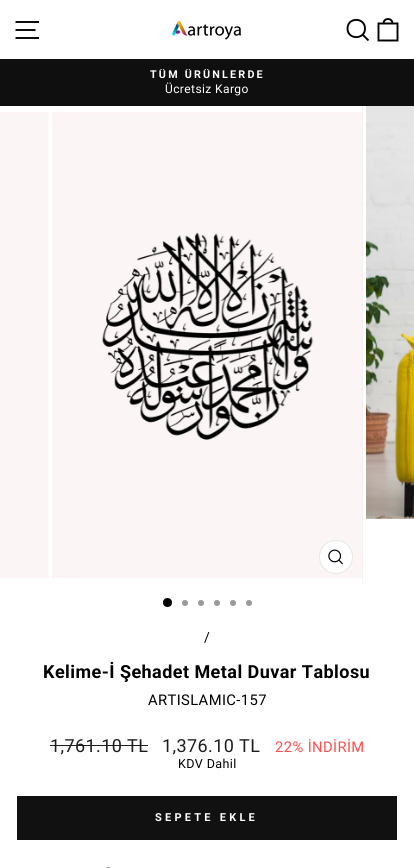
import math
import cairocffi as cairo

surface = cairo.ImageSurface(cairo.FORMAT_RGB24, 414, 868)
cr = cairo.Context(surface)
options = cairo.FontOptions()
options.set_hint_metrics(cairo.HINT_METRICS_OFF)
options.set_hint_style(cairo.HINT_STYLE_NONE)
cr.set_font_options(options)
cr.set_miter_limit(4)


def use_color(code):
    cr.set_source_rgb(*(v / 255 for v in bytes.fromhex(code[-6:])))


def spaced_text(x, y, s, letter, word):
    cr.move_to(x, y)
    for ch in s:
        cr.show_text(ch)
        cr.rel_move_to(letter + word * (ch == ' '), 0)


def picture(path, x, y, w, h):
    cr.save()
    cr.set_source_surface(cairo.ImageSurface.create_from_png(path), x, y)
    cr.rectangle(x, y, w, h)
    cr.fill()
    cr.restore()


use_color("#ffffff")
cr.paint()
cr.new_path()
cr.move_to(15.5, 22)
cr.line_to(39, 22)
cr.move_to(15.5, 30)
cr.line_to(35.5, 30)
cr.move_to(15.5, 38)
cr.line_to(39, 38)
use_color("#000000")
cr.set_line_width(1.9)
cr.stroke()
picture("img1.png", 171, 20, 70, 20)
cr.new_path()
cr.move_to(365, 28.5)
cr.curve_to(365, 40, 347.5, 40, 347.5, 28.5)
cr.curve_to(347.5, 17, 365, 17, 365, 28.5)
cr.close_path()
cr.move_to(368.5, 40.5)
cr.line_to(362.5, 34.5)
cr.move_to(378.5, 23.5)
cr.line_to(397.5, 23.5)
cr.line_to(397.5, 40.5)
cr.line_to(378.5, 40.5)
cr.close_path()
cr.move_to(383.5, 23.5)
cr.curve_to(383.5, 17.5, 392.5, 17.5, 392.5, 23.5)
cr.stroke()
use_color("#0f0f0f")
cr.rectangle(0, 59, 414, 47)
cr.fill()
cr.save()
cr.rectangle(17, 69, 380, 27)
cr.clip()
cr.select_font_face("Roboto", cairo.FONT_SLANT_NORMAL, cairo.FONT_WEIGHT_BOLD)
cr.set_font_size(10.75)
use_color("#ffffff")
spaced_text(150, 78, "TÜM ÜRÜNLERDE", 2.2, 0)
cr.restore()
cr.select_font_face("Roboto")
cr.set_font_size(12)
use_color("#ffffff")
spaced_text(165, 93, "Ücretsiz Kargo", 0.4, 0)
picture("img2.png", 0, 106, 49, 478)
use_color("#e5e5e5")
cr.rectangle(362, 106, 1, 478)
cr.fill()
picture("img3.png", 52, 106, 311, 478)
use_color("#ffffff")
cr.arc(336, 557, 16.5, 0, 2 * math.pi)
cr.fill_preserve()
use_color("#e8e8e1")
cr.set_line_width(1)
cr.stroke()
picture("img4.png", 328, 549, 15, 16)
use_color("#e5e5e5")
cr.rectangle(366, 106, 48, 413)
cr.fill()
picture("img5.png", 366, 123, 48, 396)
use_color("#000000")
cr.arc(167.5, 602.5, 4.5, 0, 2 * math.pi)
cr.fill()
use_color("#999999")
cr.arc(185, 603, 3, 0, 2 * math.pi)
cr.fill()
cr.arc(201, 603, 3, 0, 2 * math.pi)
cr.fill()
cr.arc(217, 603, 3, 0, 2 * math.pi)
cr.fill()
cr.arc(233, 603, 3, 0, 2 * math.pi)
cr.fill()
cr.arc(249, 603, 3, 0, 2 * math.pi)
cr.fill()
cr.set_font_size(14)
use_color("#000000")
spaced_text(204, 642, "/", 0.4, 0)
cr.select_font_face("Roboto", cairo.FONT_SLANT_NORMAL, cairo.FONT_WEIGHT_BOLD)
cr.set_font_size(18)
spaced_text(43, 678, "Kelime-İ Şehadet Metal Duvar Tablosu", 0.45, 0)
cr.select_font_face("Roboto")
cr.set_font_size(14.75)
spaced_text(148, 705, "ARTISLAMIC-157", 0.4, 0)
cr.set_font_size(18)
use_color("#1c1d1d")
spaced_text(50, 752, "1,761.10 TL", 0.4, 0)
cr.rectangle(50, 745, 98, 1)
cr.fill()
spaced_text(162, 752, "1,376.10 TL", 0.4, 0)
cr.set_font_size(14.75)
use_color("#ff4e4e")
spaced_text(275, 752, "22% İNDİRİM", 0.4, 0)
cr.set_font_size(12.5)
use_color("#000000")
spaced_text(178, 768, "KDV Dahil", 0.4, 0)
use_color("#111111")
cr.rectangle(17, 796, 380, 44)
cr.fill()
cr.select_font_face("Roboto", cairo.FONT_SLANT_NORMAL, cairo.FONT_WEIGHT_BOLD)
cr.set_font_size(11)
use_color("#ffffff")
spaced_text(155, 821, "SEPETE EKLE", 3.25, 0)
picture("img6.png", 106, 867, 5, 1)
surface.write_to_png("result.png")
